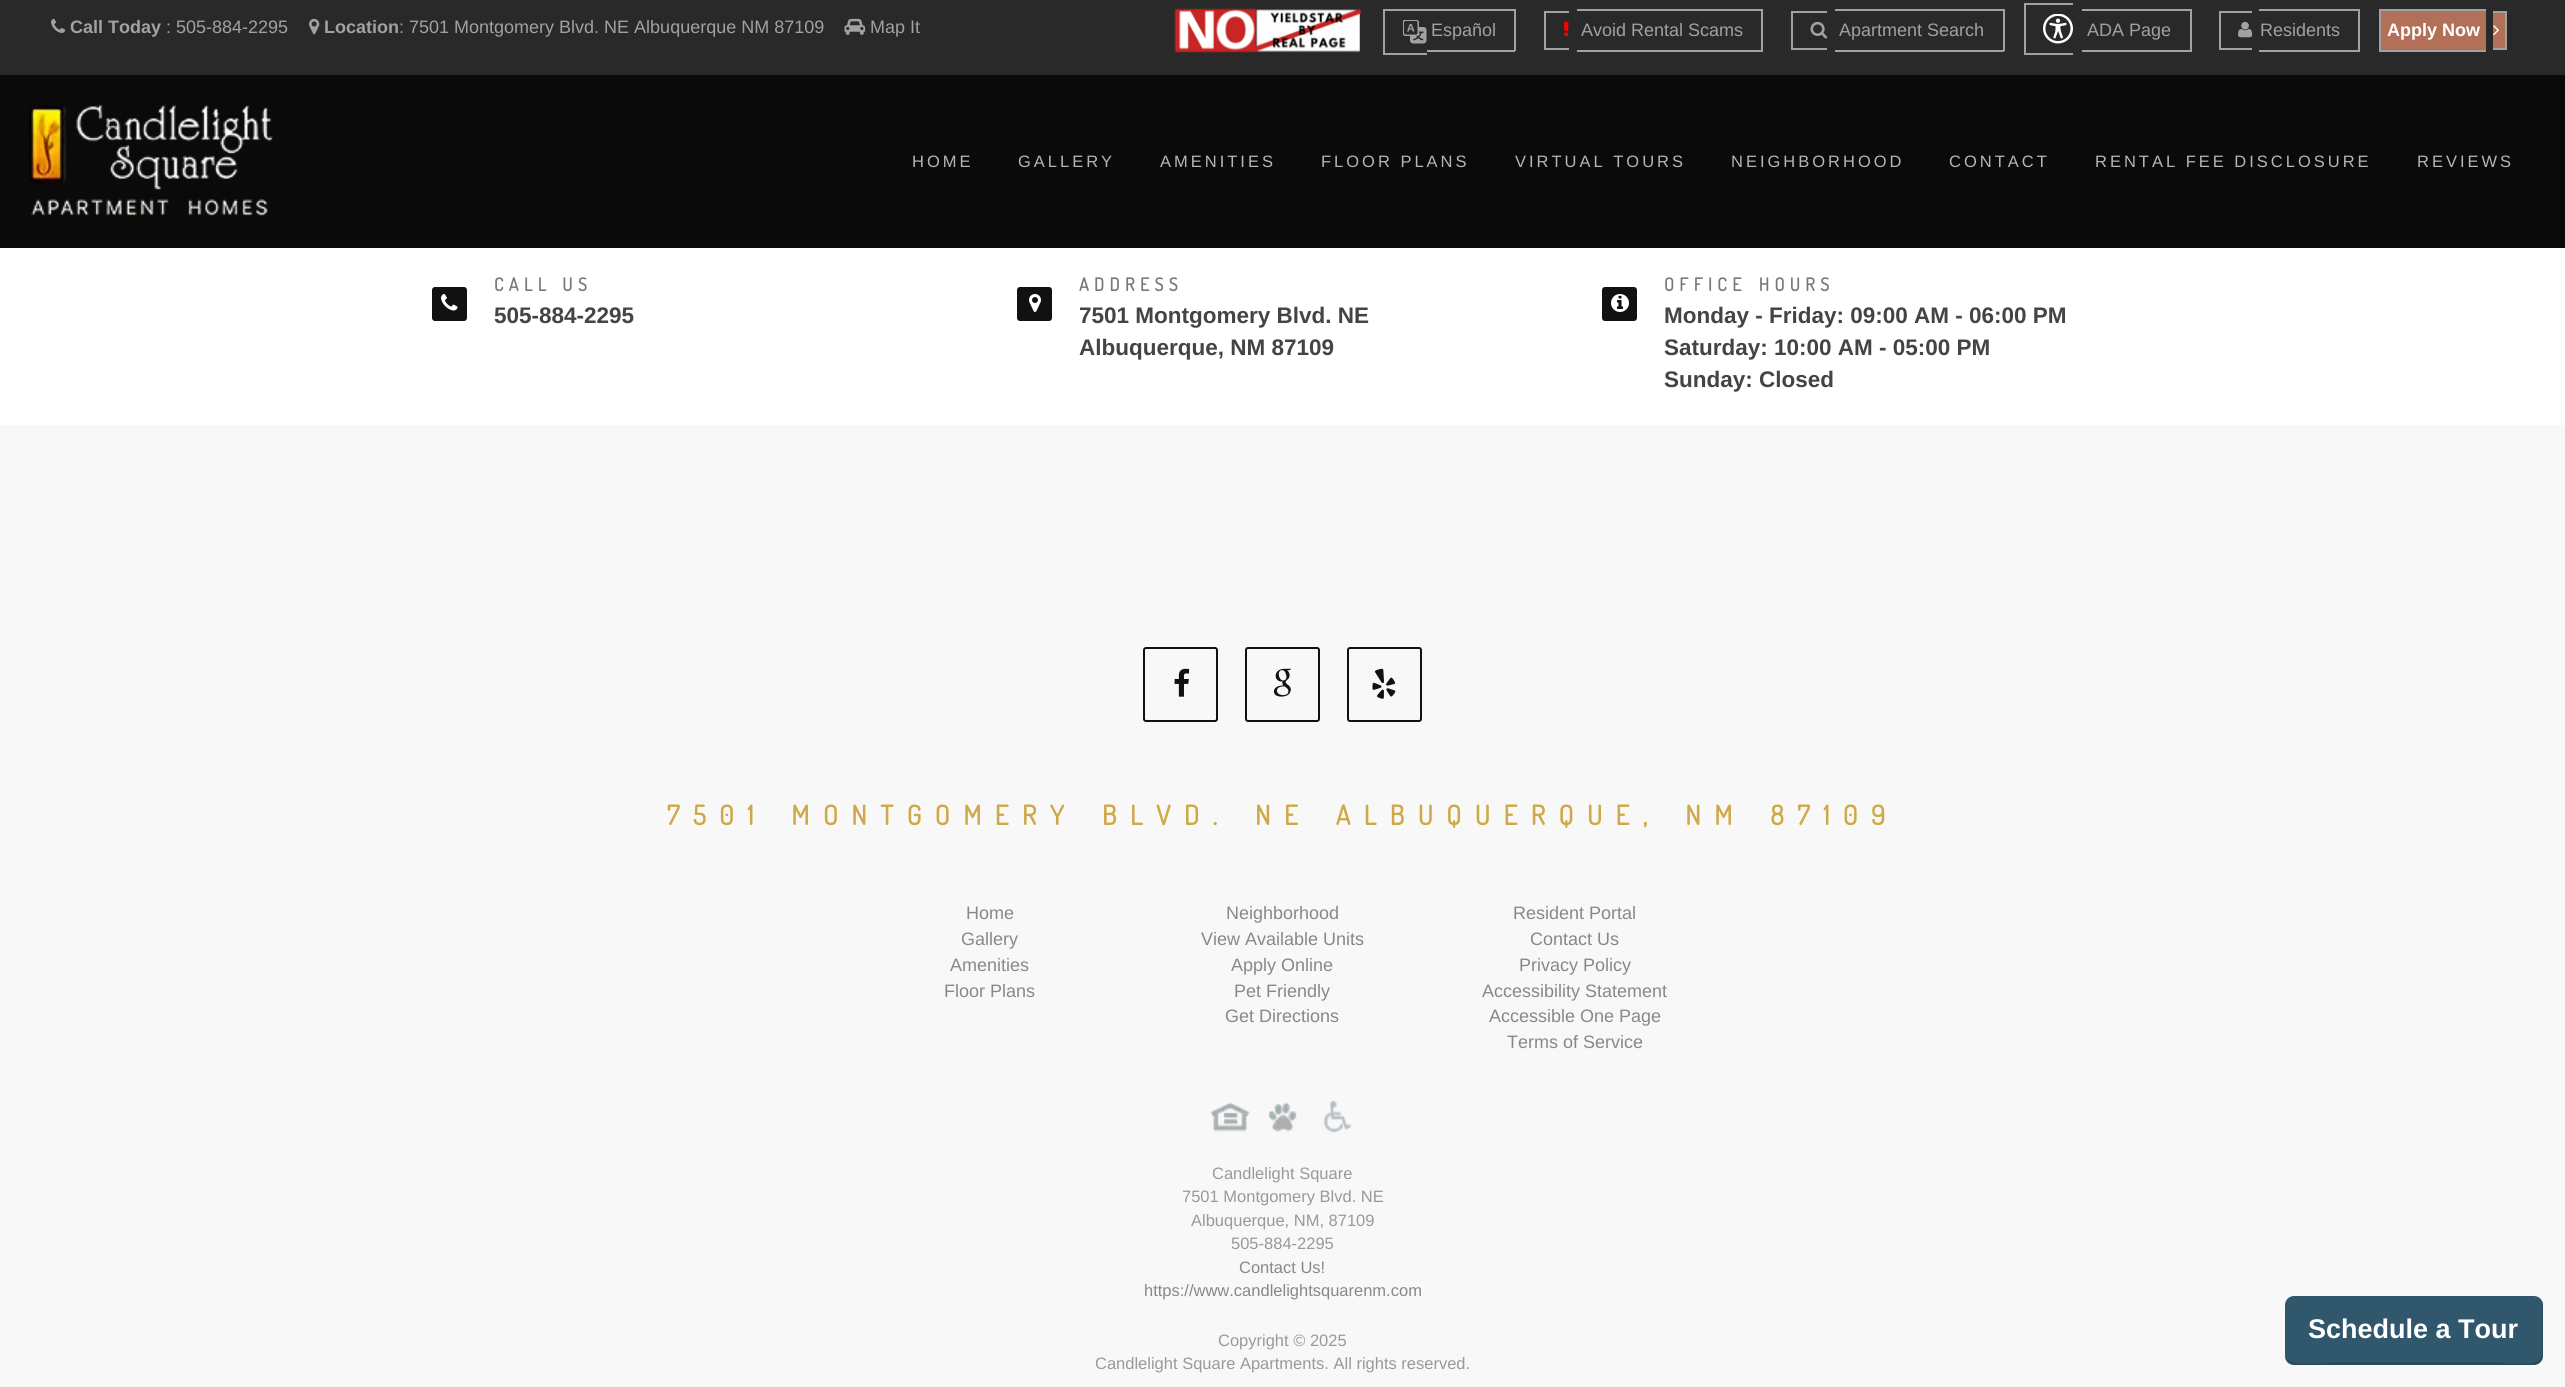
import math
import cairocffi as cairo

surface = cairo.ImageSurface(cairo.FORMAT_RGB24, 2565, 1387)
cr = cairo.Context(surface)
options = cairo.FontOptions()
options.set_hint_metrics(cairo.HINT_METRICS_OFF)
options.set_hint_style(cairo.HINT_STYLE_NONE)
cr.set_font_options(options)
cr.set_miter_limit(4)


def use_color(code):
    cr.set_source_rgb(*(v / 255 for v in bytes.fromhex(code[-6:])))


def spaced_text(x, y, s, letter, word):
    cr.move_to(x, y)
    for ch in s:
        cr.show_text(ch)
        cr.rel_move_to(letter + word * (ch == ' '), 0)


def round_rect(x, y, w, h, r):
    cr.new_sub_path()
    for i, (u, v) in enumerate([(x + w - r, y + h - r), (x + r, y + h - r), (x + r, y + r), (x + w - r, y + r)]):
        cr.arc(u, v, r, i * math.pi / 2, (i + 1) * math.pi / 2)
    cr.close_path()


def picture(path, x, y, w, h):
    cr.save()
    cr.set_source_surface(cairo.ImageSurface.create_from_png(path), x, y)
    cr.rectangle(x, y, w, h)
    cr.fill()
    cr.restore()


use_color("#ffffff")
cr.paint()
use_color("#292929")
cr.rectangle(0, 0, 2565, 75)
cr.fill()
picture("img1.png", 51, 18, 15, 15)
cr.select_font_face("Liberation Sans", cairo.FONT_SLANT_NORMAL, cairo.FONT_WEIGHT_BOLD)
cr.set_font_size(18)
use_color("#a1a1a1")
cr.move_to(70, 33)
cr.show_text("Call Today")
cr.select_font_face("Liberation Sans")
cr.move_to(166, 33)
cr.show_text(": 505-884-2295")
picture("img2.png", 309, 18, 11, 17)
cr.select_font_face("Liberation Sans", cairo.FONT_SLANT_NORMAL, cairo.FONT_WEIGHT_BOLD)
cr.move_to(324, 33)
cr.show_text("Location")
cr.select_font_face("Liberation Sans")
cr.move_to(399, 33)
cr.show_text(": 7501 Montgomery Blvd. NE Albuquerque NM 87109")
picture("img3.png", 844, 18, 22, 17)
cr.move_to(870, 33)
cr.show_text("Map It")
picture("img4.png", 1174, 8, 188, 45)
picture("img5.png", 1403, 20, 24, 24)
cr.move_to(1431, 36)
cr.show_text("Español")
cr.rectangle(1383, 9, 132, 2)
cr.fill()
cr.rectangle(1383, 53, 44, 2)
cr.fill()
cr.rectangle(1383, 9, 2, 45)
cr.fill()
cr.rectangle(1427, 50, 25, 2)
cr.fill()
cr.rectangle(1514, 9, 2, 42)
cr.fill()
cr.rectangle(1452, 50, 63, 2)
cr.fill()
cr.rectangle(1544, 11, 25, 2)
cr.fill()
cr.rectangle(1544, 48, 25, 2)
cr.fill()
cr.rectangle(1544, 11, 2, 39)
cr.fill()
cr.rectangle(1577, 9, 186, 2)
cr.fill()
cr.rectangle(1761, 9, 2, 42)
cr.fill()
cr.rectangle(1577, 50, 186, 2)
cr.fill()
picture("img6.png", 1564, 21, 5, 15)
cr.move_to(1581, 36)
cr.show_text("Avoid Rental Scams")
cr.rectangle(1791, 11, 36, 2)
cr.fill()
cr.rectangle(1791, 48, 36, 2)
cr.fill()
cr.rectangle(1791, 11, 2, 39)
cr.fill()
cr.rectangle(1835, 9, 169, 2)
cr.fill()
cr.rectangle(2003, 9, 2, 42)
cr.fill()
cr.rectangle(1835, 50, 169, 2)
cr.fill()
picture("img7.png", 1810, 21, 18, 18)
cr.move_to(1839, 36)
cr.show_text("Apartment Search")
picture("img8.png", 2043, 14, 30, 30)
cr.move_to(2087, 36)
cr.show_text("ADA Page")
cr.rectangle(2024, 3, 49, 2)
cr.fill()
cr.rectangle(2024, 53, 49, 2)
cr.fill()
cr.rectangle(2024, 3, 2, 51)
cr.fill()
cr.rectangle(2082, 9, 110, 2)
cr.fill()
cr.rectangle(2190, 9, 2, 42)
cr.fill()
cr.rectangle(2082, 50, 110, 2)
cr.fill()
cr.rectangle(2219, 11, 33, 2)
cr.fill()
cr.rectangle(2219, 48, 33, 2)
cr.fill()
cr.rectangle(2219, 11, 2, 39)
cr.fill()
cr.rectangle(2259, 9, 101, 2)
cr.fill()
cr.rectangle(2358, 9, 2, 42)
cr.fill()
cr.rectangle(2259, 50, 101, 2)
cr.fill()
picture("img9.png", 2238, 21, 15, 17)
cr.move_to(2260, 36)
cr.show_text("Residents")
use_color("#b37059")
cr.rectangle(2381, 11, 105, 39)
cr.fill()
use_color("#a1a1a1")
cr.rectangle(2379, 9, 107, 2)
cr.fill()
cr.rectangle(2379, 50, 107, 2)
cr.fill()
cr.rectangle(2379, 9, 2, 42)
cr.fill()
use_color("#b37059")
cr.rectangle(2493, 13, 12, 35)
cr.fill()
use_color("#a1a1a1")
cr.rectangle(2493, 11, 14, 2)
cr.fill()
cr.rectangle(2505, 11, 2, 39)
cr.fill()
cr.rectangle(2493, 48, 14, 2)
cr.fill()
cr.select_font_face("Liberation Sans", cairo.FONT_SLANT_NORMAL, cairo.FONT_WEIGHT_BOLD)
use_color("#ffffff")
cr.move_to(2387, 36)
cr.show_text("Apply Now")
picture("img10.png", 2493, 25, 6, 11)
use_color("#0a0a0a")
cr.rectangle(0, 75, 2565, 173)
cr.fill()
picture("img11.png", 29, 104, 245, 113)
cr.select_font_face("Liberation Sans")
cr.set_font_size(16.5)
use_color("#b6b6b6")
spaced_text(912, 167, "HOME", 3, 0)
spaced_text(1018, 167, "GALLERY", 3, 0)
spaced_text(1160, 167, "AMENITIES", 3, 0)
spaced_text(1321, 167, "FLOOR PLANS", 3, 0)
spaced_text(1515, 167, "VIRTUAL TOURS", 3, 0)
spaced_text(1731, 167, "NEIGHBORHOOD", 3, 0)
spaced_text(1949, 167, "CONTACT", 3, 0)
spaced_text(2095, 167, "RENTAL FEE DISCLOSURE", 3, 0)
spaced_text(2417, 167, "REVIEWS", 3, 0)
cr.select_font_face("Dosis", cairo.FONT_SLANT_NORMAL, cairo.FONT_WEIGHT_BOLD)
cr.set_font_size(18)
use_color("#777777")
spaced_text(494, 291, "CALL US", 5.4, 2)
use_color("#111111")
round_rect(432, 287, 35, 34, 3)
cr.fill()
picture("img12.png", 441, 294, 17, 17)
cr.select_font_face("Liberation Sans", cairo.FONT_SLANT_NORMAL, cairo.FONT_WEIGHT_BOLD)
cr.set_font_size(22.5)
use_color("#444444")
cr.move_to(494, 323)
cr.show_text("505-884-2295")
cr.select_font_face("Dosis", cairo.FONT_SLANT_NORMAL, cairo.FONT_WEIGHT_BOLD)
cr.set_font_size(18)
use_color("#777777")
spaced_text(1079, 291, "ADDRESS", 5.4, 0)
use_color("#111111")
round_rect(1017, 287, 35, 34, 3)
cr.fill()
picture("img13.png", 1029, 294, 12, 18)
cr.select_font_face("Liberation Sans", cairo.FONT_SLANT_NORMAL, cairo.FONT_WEIGHT_BOLD)
cr.set_font_size(22.5)
use_color("#444444")
cr.move_to(1079, 323)
cr.show_text("7501 Montgomery Blvd. NE")
cr.move_to(1079, 355)
cr.show_text("Albuquerque, NM 87109")
cr.select_font_face("Dosis", cairo.FONT_SLANT_NORMAL, cairo.FONT_WEIGHT_BOLD)
cr.set_font_size(18)
use_color("#777777")
spaced_text(1664, 291, "OFFICE HOURS", 5.4, 3)
use_color("#111111")
round_rect(1602, 287, 35, 34, 3)
cr.fill()
picture("img14.png", 1611, 294, 18, 18)
cr.select_font_face("Liberation Sans", cairo.FONT_SLANT_NORMAL, cairo.FONT_WEIGHT_BOLD)
cr.set_font_size(22.5)
use_color("#444444")
cr.move_to(1664, 323)
cr.show_text("Monday - Friday: 09:00 AM - 06:00 PM")
cr.move_to(1664, 355)
cr.show_text("Saturday: 10:00 AM - 05:00 PM")
cr.move_to(1664, 387)
cr.show_text("Sunday: Closed")
use_color("#f8f8f8")
cr.rectangle(0, 425, 2565, 962)
cr.fill()
round_rect(1144, 648, 73, 73, 2)
use_color("#111111")
cr.stroke()
picture("img15.png", 1174, 668, 16, 29)
round_rect(1246, 648, 73, 73, 2)
cr.stroke()
picture("img16.png", 1273, 668, 19, 29)
round_rect(1348, 648, 73, 73, 2)
cr.stroke()
picture("img17.png", 1372, 668, 24, 31)
cr.select_font_face("Dosis", cairo.FONT_SLANT_NORMAL, cairo.FONT_WEIGHT_BOLD)
cr.set_font_size(27)
use_color("#cfa948")
spaced_text(667, 825, "7501 MONTGOMERY BLVD. NE ALBUQUERQUE, NM 87109", 13.5, 5.5)
cr.select_font_face("Liberation Sans")
cr.set_font_size(18)
use_color("#888888")
cr.move_to(966, 919)
cr.show_text("Home")
cr.move_to(961, 945)
cr.show_text("Gallery")
cr.move_to(950, 971)
cr.show_text("Amenities")
cr.move_to(944, 997)
cr.show_text("Floor Plans")
cr.move_to(1226, 919)
cr.show_text("Neighborhood")
cr.move_to(1201, 945)
cr.show_text("View Available Units")
cr.move_to(1231, 971)
cr.show_text("Apply Online")
cr.move_to(1234, 997)
cr.show_text("Pet Friendly")
cr.move_to(1225, 1022)
cr.show_text("Get Directions")
cr.move_to(1513, 919)
cr.show_text("Resident Portal")
cr.move_to(1530, 945)
cr.show_text("Contact Us")
cr.move_to(1519, 971)
cr.show_text("Privacy Policy")
cr.move_to(1482, 997)
cr.show_text("Accessibility Statement")
cr.move_to(1489, 1022)
cr.show_text("Accessible One Page")
cr.move_to(1507, 1048)
cr.show_text("Terms of Service")
picture("img18.png", 1210, 1102, 40, 30)
picture("img19.png", 1268, 1102, 29, 30)
picture("img20.png", 1323, 1101, 29, 32)
cr.set_font_size(16.5)
use_color("#999999")
cr.move_to(1212, 1179)
cr.show_text("Candlelight Square")
cr.move_to(1182, 1202)
cr.show_text("7501 Montgomery Blvd. NE")
cr.move_to(1191, 1226)
cr.show_text("Albuquerque, NM, 87109")
cr.move_to(1231, 1249)
cr.show_text("505-884-2295")
use_color("#888888")
cr.move_to(1239, 1273)
cr.show_text("Contact Us!")
cr.move_to(1144, 1296)
cr.show_text("https://www.candlelightsquarenm.com")
use_color("#999999")
cr.move_to(1218, 1346)
cr.show_text("Copyright © 2025")
cr.move_to(1095, 1369)
cr.show_text("Candlelight Square Apartments. All rights reserved.")
use_color("#31576d")
round_rect(2285, 1296, 258, 69, 9)
cr.fill()
cr.set_source_rgba(0, 0, 0, 0.15)
cr.new_path()
cr.move_to(2285, 1357)
cr.curve_to(2285, 1361, 2289, 1365, 2294, 1365)
cr.line_to(2534, 1365)
cr.curve_to(2539, 1365, 2543, 1361, 2543, 1356)
cr.line_to(2543, 1305)
cr.curve_to(2543, 1303, 2543, 1302, 2542, 1301)
cr.line_to(2542, 1355)
cr.curve_to(2539, 1369, 2506, 1362, 2494, 1362)
cr.line_to(2334, 1362)
cr.curve_to(2330, 1362, 2292, 1368, 2285, 1357)
cr.close_path()
cr.fill()
cr.select_font_face("Liberation Sans", cairo.FONT_SLANT_NORMAL, cairo.FONT_WEIGHT_BOLD)
cr.set_font_size(27)
use_color("#ffffff")
cr.move_to(2308, 1338)
cr.show_text("Schedule a Tour")
surface.write_to_png("result.png")
